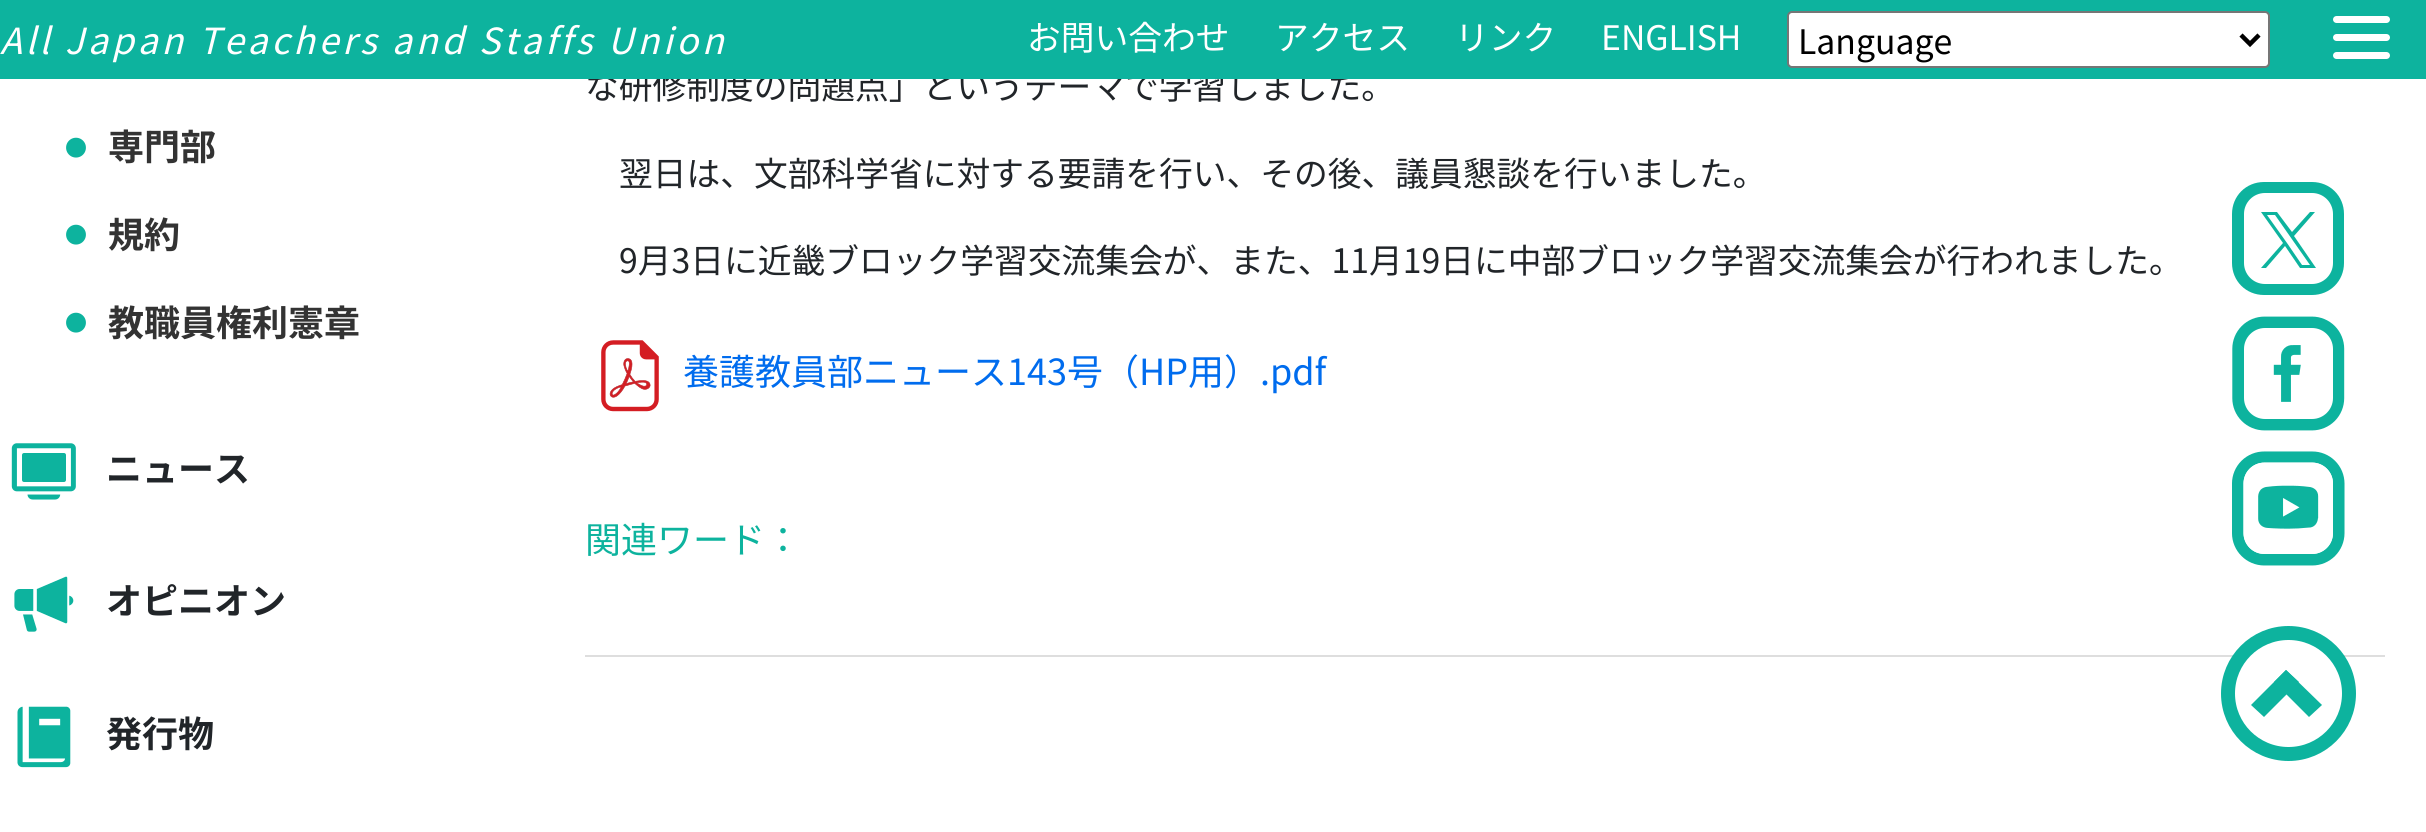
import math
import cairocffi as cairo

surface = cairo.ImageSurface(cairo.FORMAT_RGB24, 2426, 832)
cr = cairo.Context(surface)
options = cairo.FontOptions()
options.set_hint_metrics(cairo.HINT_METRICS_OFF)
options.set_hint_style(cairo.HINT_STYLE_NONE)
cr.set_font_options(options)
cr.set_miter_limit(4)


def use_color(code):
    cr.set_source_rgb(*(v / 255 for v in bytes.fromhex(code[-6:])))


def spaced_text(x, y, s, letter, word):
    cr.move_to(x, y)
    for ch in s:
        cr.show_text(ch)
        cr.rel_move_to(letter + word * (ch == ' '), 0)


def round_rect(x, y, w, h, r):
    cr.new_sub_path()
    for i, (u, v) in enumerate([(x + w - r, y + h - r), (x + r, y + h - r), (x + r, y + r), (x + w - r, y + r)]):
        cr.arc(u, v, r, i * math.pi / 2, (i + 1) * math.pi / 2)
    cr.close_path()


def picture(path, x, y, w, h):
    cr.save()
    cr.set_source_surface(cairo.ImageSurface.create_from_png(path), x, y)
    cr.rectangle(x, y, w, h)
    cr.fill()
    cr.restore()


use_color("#ffffff")
cr.paint()
cr.select_font_face("Noto Sans JP")
cr.set_font_size(33.75)
use_color("#212529")
cr.move_to(585, 99)
cr.show_text("な研修制度の問題点」というテーマで学習しました。")
use_color("#0db39e")
cr.rectangle(0, 0, 2426, 79)
cr.fill()
cr.select_font_face("Noto Sans JP", cairo.FONT_SLANT_ITALIC)
cr.set_font_size(36)
use_color("#ffffff")
spaced_text(0, 54, "All Japan Teachers and Staffs Union", 3.6, 0)
cr.select_font_face("Noto Sans JP")
cr.set_font_size(33.75)
cr.move_to(1027, 50)
cr.show_text("お問い合わせ")
cr.move_to(1275, 50)
cr.show_text("アクセス")
cr.move_to(1455, 50)
cr.show_text("リンク")
cr.move_to(1601, 50)
cr.show_text("ENGLISH")
round_rect(1788, 12, 481, 55, 4)
cr.fill_preserve()
use_color("#767676")
cr.stroke()
cr.new_path()
cr.move_to(2241, 35)
cr.line_to(2250, 44)
cr.line_to(2259, 35)
use_color("#000000")
cr.set_line_width(4.5)
cr.stroke()
cr.move_to(1798, 54)
cr.show_text("Language")
use_color("#ffffff")
round_rect(2333, 34, 57, 7, 3.5)
cr.fill()
round_rect(2333, 16, 57, 7, 3.5)
cr.fill()
round_rect(2333, 52, 57, 7, 3.5)
cr.fill()
cr.select_font_face("Noto Sans JP", cairo.FONT_SLANT_NORMAL, cairo.FONT_WEIGHT_BOLD)
cr.set_font_size(22)
use_color("#0db39e")
cr.move_to(65, 156)
cr.show_text("●")
cr.set_font_size(36)
use_color("#333333")
cr.move_to(108, 160)
cr.show_text("専門部")
cr.set_font_size(22)
use_color("#0db39e")
cr.move_to(65, 243)
cr.show_text("●")
cr.set_font_size(36)
use_color("#333333")
cr.move_to(108, 248)
cr.show_text("規約")
cr.set_font_size(22)
use_color("#0db39e")
cr.move_to(65, 331)
cr.show_text("●")
cr.set_font_size(36)
use_color("#333333")
cr.move_to(108, 336)
cr.show_text("教職員権利憲章")
picture("img1.png", 11, 443, 65, 57)
use_color("#212529")
cr.move_to(106, 482)
cr.show_text("ニュース")
picture("img2.png", 14, 576, 60, 56)
cr.move_to(106, 614)
cr.show_text("オピニオン")
picture("img3.png", 17, 706, 54, 62)
cr.move_to(106, 747)
cr.show_text("発行物")
use_color("#dedede")
cr.rectangle(585, 655, 1800, 2)
cr.fill()
cr.select_font_face("Noto Sans JP")
cr.set_font_size(33.75)
use_color("#212529")
cr.move_to(619, 186)
cr.show_text("翌日は、文部科学省に対する要請を行い、その後、議員懇談を行いました。")
cr.move_to(619, 273)
cr.show_text("9月3日に近畿ブロック学習交流集会が、また、11月19日に中部ブロック学習交流集会が行われました。")
picture("img4.png", 601, 340, 58, 72)
cr.set_font_size(36)
use_color("#006cee")
cr.move_to(683, 385)
cr.show_text("養護教員部ニュース143号（HP用）.pdf")
use_color("#0db39e")
cr.move_to(585, 553)
cr.show_text("関連ワード：")
cr.new_path()
cr.move_to(2312, 182)
cr.line_to(2264, 182)
cr.curve_to(2246, 182, 2232, 196, 2232, 214)
cr.line_to(2232, 263)
cr.curve_to(2232, 281, 2246, 295, 2264, 295)
cr.line_to(2312, 295)
cr.curve_to(2330, 295, 2344, 281, 2344, 263)
cr.line_to(2344, 214)
cr.curve_to(2344, 196, 2330, 182, 2312, 182)
cr.close_path()
cr.fill()
use_color("#ffffff")
round_rect(2244, 193, 89, 91, 21)
cr.fill()
use_color("#0db39e")
cr.new_path()
cr.move_to(2294, 236)
cr.line_to(2315, 212)
cr.line_to(2310, 212)
cr.line_to(2292, 232)
cr.line_to(2277, 212)
cr.line_to(2261, 212)
cr.line_to(2283, 243)
cr.line_to(2261, 268)
cr.line_to(2266, 268)
cr.line_to(2285, 246)
cr.line_to(2300, 268)
cr.line_to(2316, 268)
cr.close_path()
cr.move_to(2287, 243)
cr.line_to(2267, 215)
cr.line_to(2275, 215)
cr.line_to(2310, 265)
cr.line_to(2302, 265)
cr.close_path()
cr.fill()
picture("img5.png", 2232, 316, 113, 115)
picture("img6.png", 2232, 451, 113, 115)
use_color("#ffffff")
cr.arc(2288.5, 693.5, 60.5, 0, 2 * math.pi)
cr.fill_preserve()
use_color("#0db39e")
cr.set_line_width(14)
cr.stroke()
cr.new_path()
cr.move_to(2251, 705)
cr.line_to(2286, 670)
cr.line_to(2299, 682)
cr.line_to(2264, 717)
cr.close_path()
cr.fill()
cr.new_path()
cr.move_to(2274, 682)
cr.line_to(2286, 670)
cr.line_to(2322, 705)
cr.line_to(2309, 717)
cr.close_path()
cr.fill()
surface.write_to_png("result.png")
